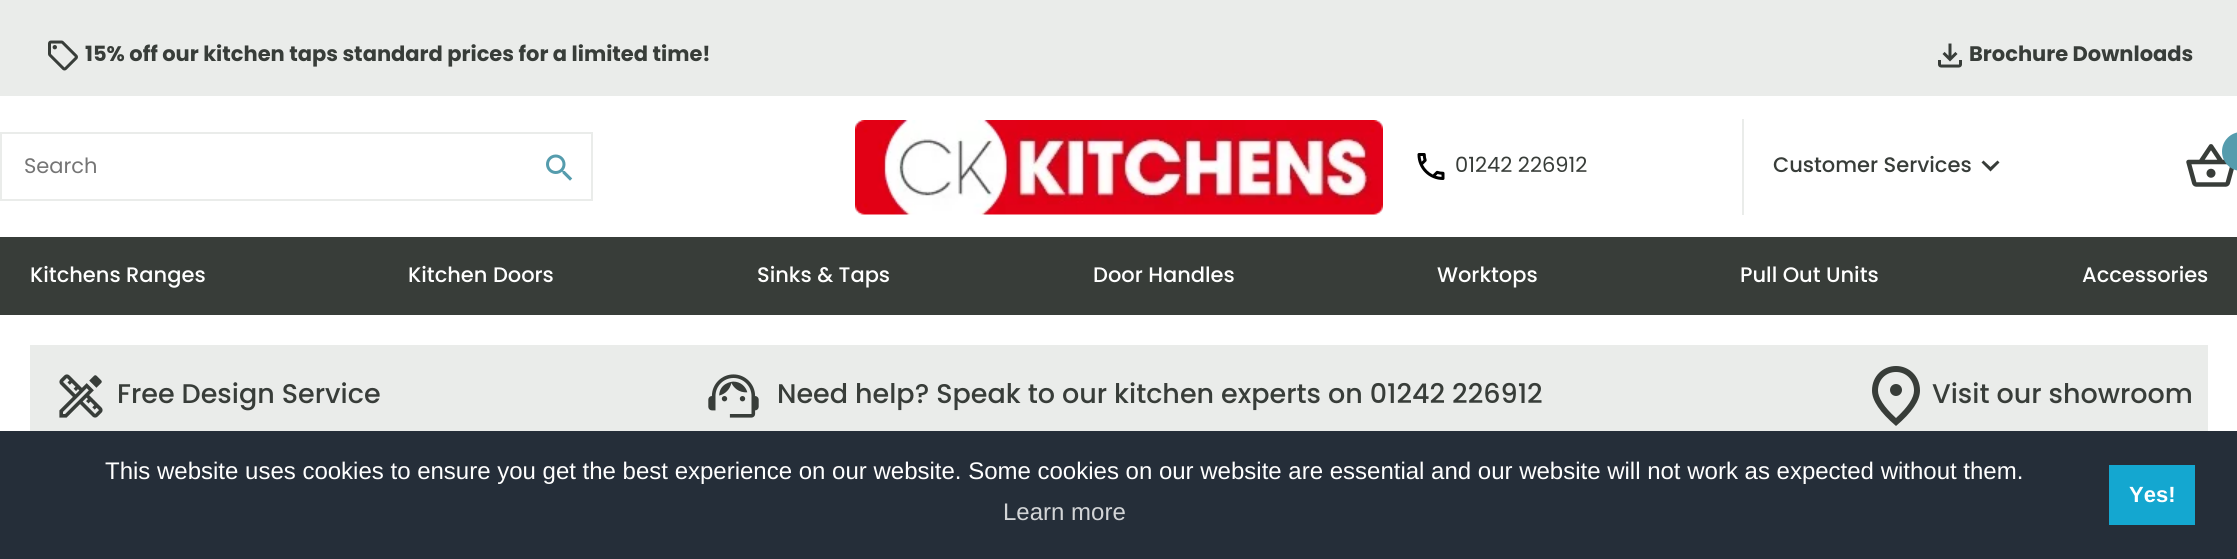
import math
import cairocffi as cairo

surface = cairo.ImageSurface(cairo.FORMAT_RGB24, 2237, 559)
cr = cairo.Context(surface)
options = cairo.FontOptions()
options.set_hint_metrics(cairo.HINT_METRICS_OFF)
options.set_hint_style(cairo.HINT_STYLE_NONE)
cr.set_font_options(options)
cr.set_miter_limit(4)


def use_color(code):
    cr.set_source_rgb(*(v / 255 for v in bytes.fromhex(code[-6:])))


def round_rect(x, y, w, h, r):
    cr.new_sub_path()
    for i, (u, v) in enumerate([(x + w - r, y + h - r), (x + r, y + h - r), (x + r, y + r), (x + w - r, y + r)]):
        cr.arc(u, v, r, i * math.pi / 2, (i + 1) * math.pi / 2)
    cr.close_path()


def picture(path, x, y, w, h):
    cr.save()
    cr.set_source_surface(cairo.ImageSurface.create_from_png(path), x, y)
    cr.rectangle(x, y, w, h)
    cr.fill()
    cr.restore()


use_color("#ffffff")
cr.paint()
use_color("#eaecea")
cr.rectangle(0, 0, 2237, 96)
cr.fill()
picture("img1.png", 48, 40, 30, 31)
cr.select_font_face("Poppins", cairo.FONT_SLANT_NORMAL, cairo.FONT_WEIGHT_BOLD)
cr.set_font_size(21)
use_color("#383d39")
cr.move_to(85, 61)
cr.show_text("15% off our kitchen taps standard prices for a limited time!")
picture("img2.png", 1938, 43, 24, 25)
cr.move_to(1969, 61)
cr.show_text("Brochure Downloads")
cr.rectangle(1, 133, 591, 67)
use_color("#eaecea")
cr.stroke()
cr.select_font_face("Poppins")
use_color("#757575")
cr.move_to(24, 173)
cr.show_text("Search")
picture("img3.png", 546, 154, 27, 27)
picture("img4.png", 855, 120, 528, 95)
picture("img5.png", 1417, 153, 28, 27)
use_color("#383d39")
cr.move_to(1455, 172)
cr.show_text("01242 226912")
use_color("#eaecea")
cr.rectangle(1742, 119, 2, 96)
cr.fill()
cr.select_font_face("Poppins Medium")
use_color("#383d39")
cr.move_to(1773, 172)
cr.show_text("Customer Services")
cr.new_path()
cr.move_to(1983.5, 160.5)
cr.line_to(1990.5, 167)
cr.line_to(1997.5, 160.5)
cr.line_to(1999.5, 162.5)
cr.line_to(1990.5, 171.5)
cr.line_to(1981.5, 162.5)
cr.close_path()
cr.fill()
picture("img6.png", 2186, 144, 48, 43)
use_color("#559cad")
round_rect(2222, 132, 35, 39, 19.5)
cr.fill()
use_color("#383d39")
cr.rectangle(0, 237, 2237, 78)
cr.fill()
use_color("#ffffff")
cr.move_to(30, 282)
cr.show_text("Kitchens Ranges")
cr.move_to(408, 282)
cr.show_text("Kitchen Doors")
cr.move_to(757, 282)
cr.show_text("Sinks & Taps")
cr.move_to(1093, 282)
cr.show_text("Door Handles")
cr.move_to(1437, 282)
cr.show_text("Worktops")
cr.move_to(1740, 282)
cr.show_text("Pull Out Units")
cr.move_to(2082, 282)
cr.show_text("Accessories")
use_color("#eaecea")
cr.rectangle(30, 345, 2178, 86)
cr.fill()
picture("img7.png", 59, 374, 44, 44)
cr.set_font_size(27)
use_color("#383d39")
cr.move_to(117, 403)
cr.show_text("Free Design Service")
picture("img8.png", 708, 374, 51, 44)
cr.move_to(777, 403)
cr.show_text("Need help? Speak to our kitchen experts on 01242 226912")
picture("img9.png", 1872, 366, 48, 60)
cr.move_to(1932, 403)
cr.show_text("Visit our showroom")
use_color("#252e39")
cr.rectangle(0, 431, 2237, 128)
cr.fill()
cr.select_font_face("Liberation Sans")
cr.set_font_size(24)
use_color("#ffffff")
cr.move_to(105, 479)
cr.show_text("This website uses cookies to ensure you get the best experience on our website. Some cookies on our website are essential and our website will not work as expected without them.")
use_color("#d3d5d7")
cr.move_to(1003, 520)
cr.show_text("Learn more")
use_color("#14a7d0")
cr.rectangle(2109, 465, 86, 60)
cr.fill()
cr.select_font_face("Liberation Sans", cairo.FONT_SLANT_NORMAL, cairo.FONT_WEIGHT_BOLD)
cr.set_font_size(22)
use_color("#ffffff")
cr.move_to(2129, 502)
cr.show_text("Yes!")
surface.write_to_png("result.png")
